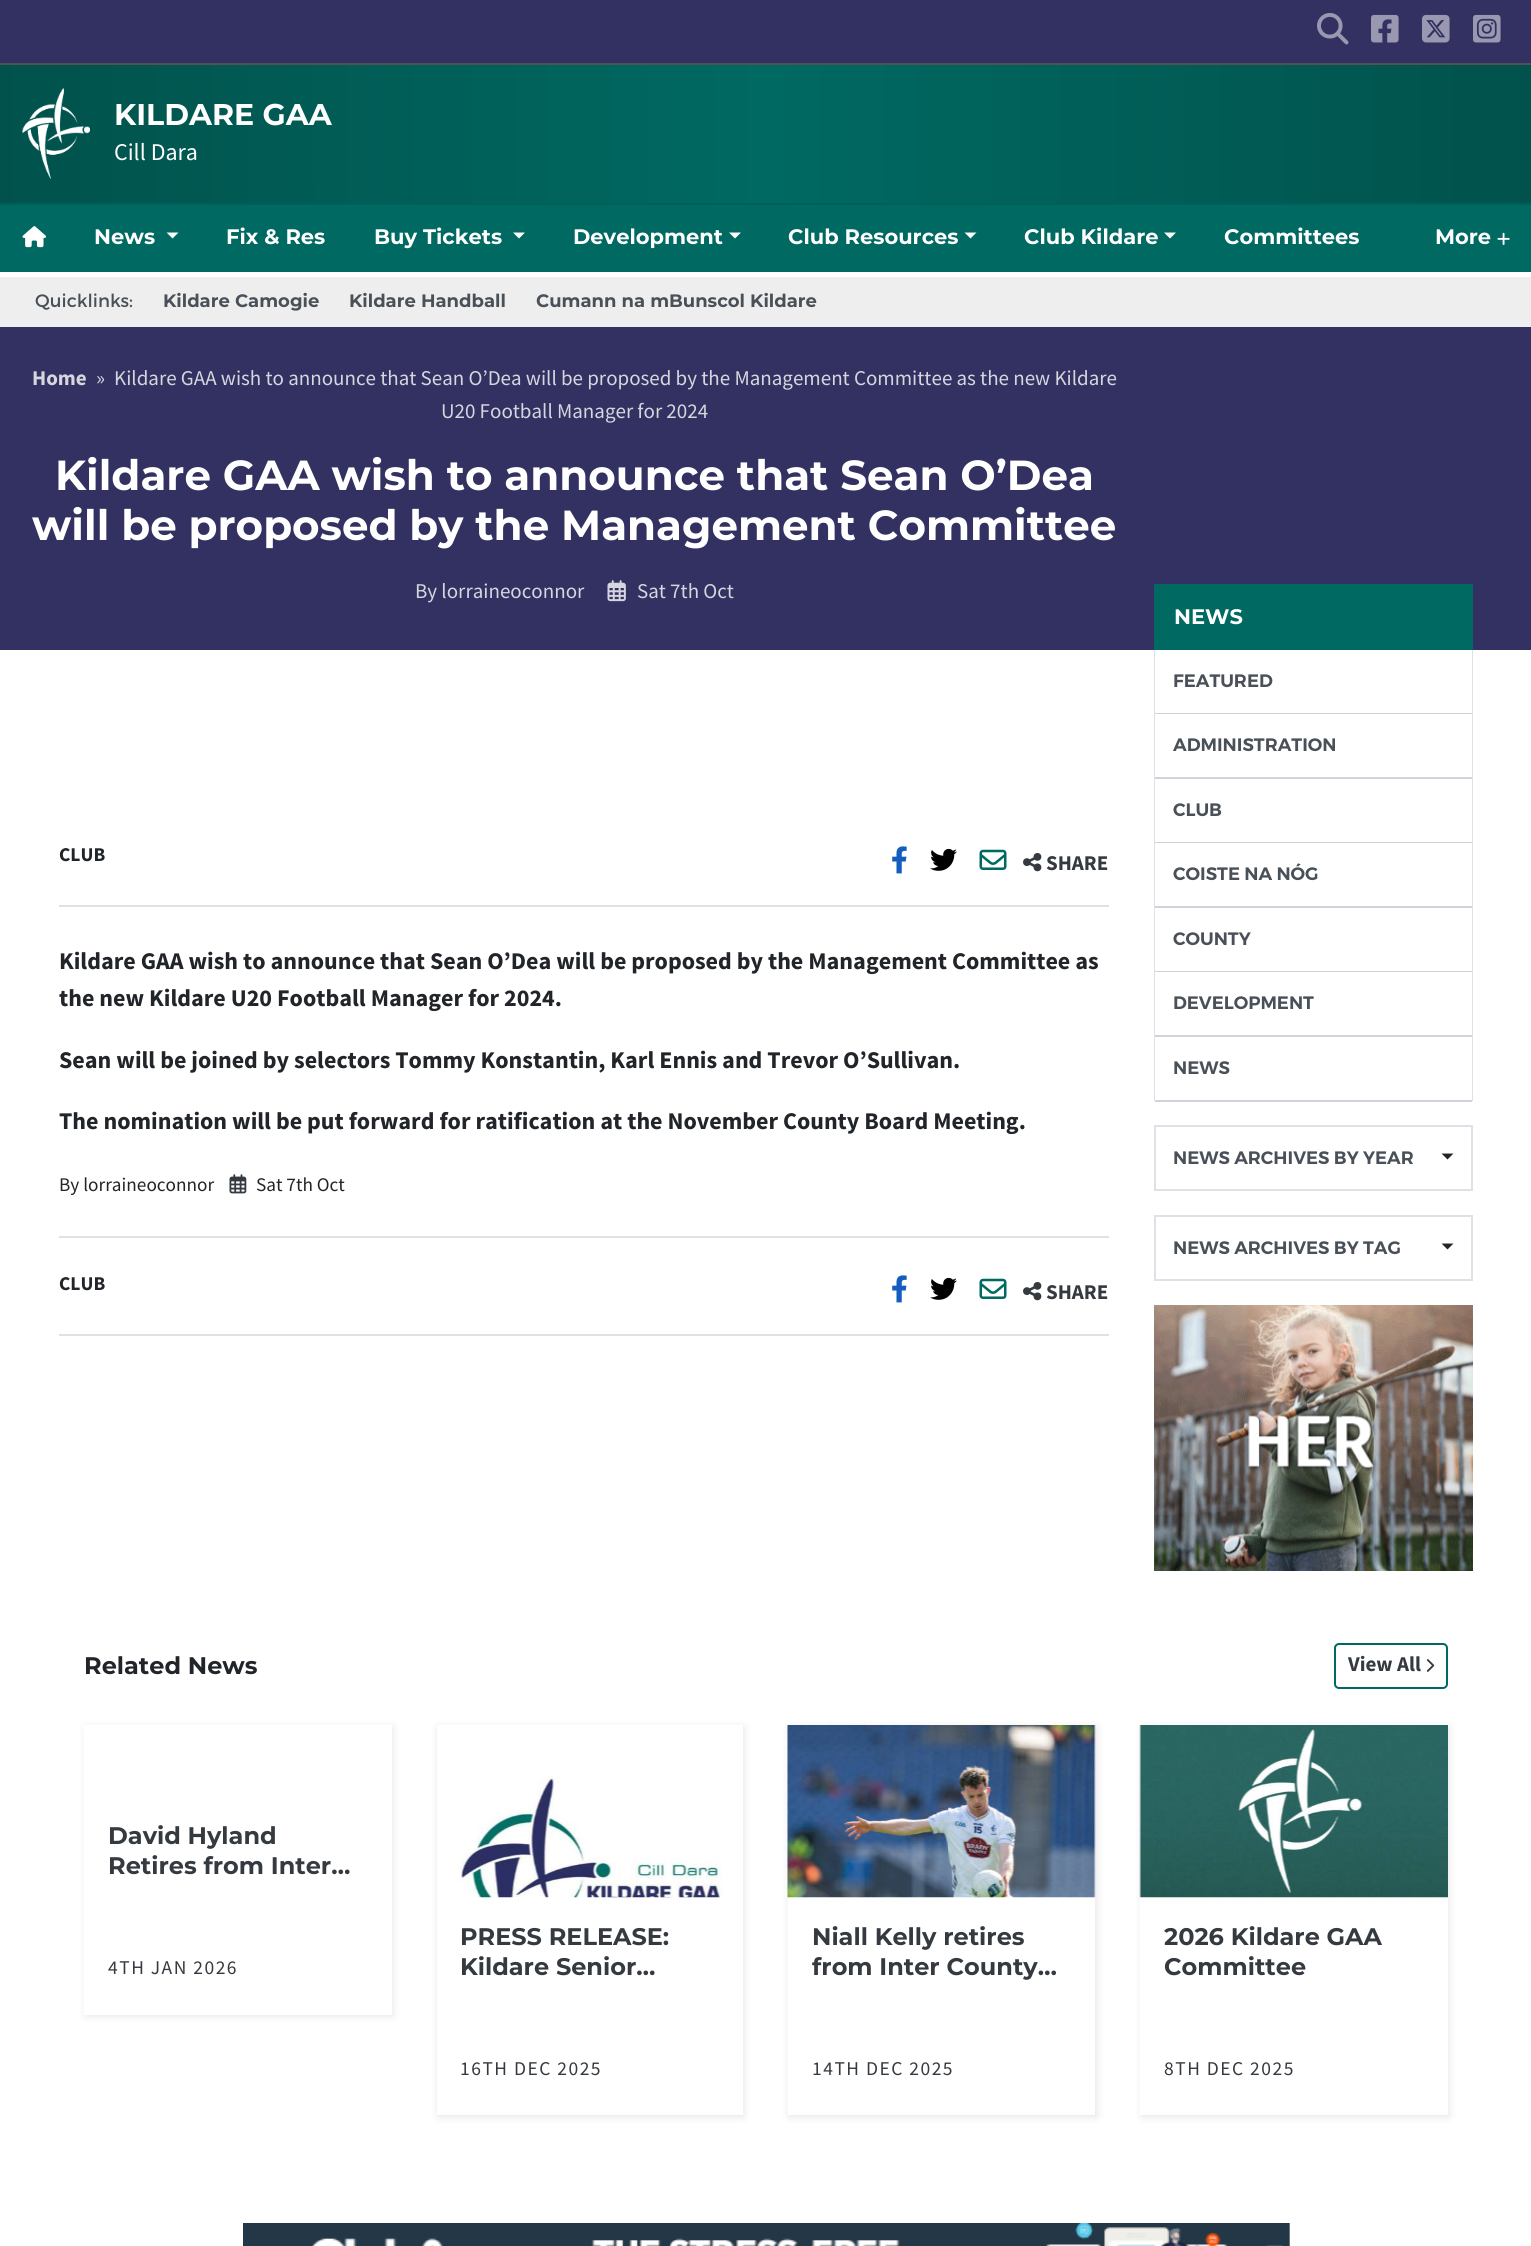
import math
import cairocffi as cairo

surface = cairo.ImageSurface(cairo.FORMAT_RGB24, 1531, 2246)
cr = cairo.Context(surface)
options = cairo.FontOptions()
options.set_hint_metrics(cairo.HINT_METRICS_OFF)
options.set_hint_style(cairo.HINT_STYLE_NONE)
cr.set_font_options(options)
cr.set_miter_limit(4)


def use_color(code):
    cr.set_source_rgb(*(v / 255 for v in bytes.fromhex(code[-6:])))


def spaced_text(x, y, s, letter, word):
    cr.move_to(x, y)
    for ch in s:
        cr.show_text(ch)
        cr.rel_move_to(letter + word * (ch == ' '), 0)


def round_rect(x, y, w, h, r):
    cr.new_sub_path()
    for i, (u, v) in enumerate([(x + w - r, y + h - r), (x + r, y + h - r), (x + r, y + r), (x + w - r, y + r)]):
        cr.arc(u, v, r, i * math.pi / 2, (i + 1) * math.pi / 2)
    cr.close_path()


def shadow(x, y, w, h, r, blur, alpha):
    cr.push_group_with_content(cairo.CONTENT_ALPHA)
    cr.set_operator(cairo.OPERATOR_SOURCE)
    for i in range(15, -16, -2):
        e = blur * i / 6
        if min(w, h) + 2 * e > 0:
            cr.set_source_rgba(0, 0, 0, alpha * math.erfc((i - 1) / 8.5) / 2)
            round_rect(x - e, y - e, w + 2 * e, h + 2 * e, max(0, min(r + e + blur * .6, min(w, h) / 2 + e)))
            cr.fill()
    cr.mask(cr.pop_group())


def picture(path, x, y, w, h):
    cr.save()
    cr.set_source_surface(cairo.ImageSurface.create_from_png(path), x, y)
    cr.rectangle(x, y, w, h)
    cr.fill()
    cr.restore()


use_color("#ffffff")
cr.paint()
use_color("#333161")
cr.rectangle(0, 0, 1531, 63)
cr.fill()
picture("img1.png", 1317, 13, 32, 32)
picture("img2.png", 1371, 14, 28, 29)
picture("img3.png", 1422, 14, 28, 29)
picture("img4.png", 1473, 14, 28, 29)
gradient = cairo.LinearGradient(0, 134, 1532, 133)
gradient.add_color_stop_rgba(0, 0.004, 0.322, 0.298, 1)
gradient.add_color_stop_rgba(0.5, 0, 0.412, 0.384, 1)
gradient.add_color_stop_rgba(1, 0.004, 0.322, 0.298, 1)
cr.set_source(gradient)
cr.rectangle(0, 65, 1531, 138)
cr.fill()
use_color("#525252")
cr.rectangle(0, 63, 1531, 2)
cr.fill()
picture("img5.png", 22, 88, 68, 91)
cr.select_font_face("Montserrat", cairo.FONT_SLANT_NORMAL, cairo.FONT_WEIGHT_BOLD)
cr.set_font_size(30)
use_color("#ffffff")
cr.move_to(114, 125)
cr.show_text("KILDARE GAA")
cr.select_font_face("Source Sans Pro")
cr.set_font_size(24)
cr.move_to(114, 160)
cr.show_text("Cill Dara")
use_color("#006962")
cr.rectangle(0, 205, 1531, 67)
cr.fill()
use_color("#005f58")
cr.rectangle(0, 203, 1531, 2)
cr.fill()
picture("img6.png", 22, 226, 25, 22)
cr.select_font_face("Montserrat", cairo.FONT_SLANT_NORMAL, cairo.FONT_WEIGHT_BOLD)
cr.set_font_size(21)
use_color("#ffffff")
cr.move_to(94, 244)
cr.show_text("News")
cr.new_path()
cr.move_to(166.5, 232.5)
cr.line_to(178.5, 232.5)
cr.line_to(172.5, 238.5)
cr.close_path()
cr.fill()
cr.move_to(226, 244)
cr.show_text("Fix & Res")
cr.move_to(374, 244)
cr.show_text("Buy Tickets")
cr.new_path()
cr.move_to(513, 232.5)
cr.line_to(525, 232.5)
cr.line_to(519, 238.5)
cr.close_path()
cr.fill()
cr.move_to(573, 244)
cr.show_text("Development")
cr.new_path()
cr.move_to(729, 232.5)
cr.line_to(741, 232.5)
cr.line_to(735, 238.5)
cr.close_path()
cr.fill()
cr.move_to(788, 244)
cr.show_text("Club Resources")
cr.new_path()
cr.move_to(964.5, 232.5)
cr.line_to(976.5, 232.5)
cr.line_to(970.5, 238.5)
cr.close_path()
cr.fill()
cr.move_to(1024, 244)
cr.show_text("Club Kildare")
cr.new_path()
cr.move_to(1164, 232.5)
cr.line_to(1176, 232.5)
cr.line_to(1170, 238.5)
cr.close_path()
cr.fill()
cr.move_to(1224, 244)
cr.show_text("Committees")
cr.move_to(1435, 244)
cr.show_text("More")
picture("img7.png", 1497, 232, 13, 13)
use_color("#eeeeee")
cr.rectangle(0, 277, 1531, 50)
cr.fill()
cr.select_font_face("Montserrat")
cr.set_font_size(18)
use_color("#495057")
cr.move_to(35, 307)
cr.show_text("Quicklinks:")
cr.select_font_face("Montserrat", cairo.FONT_SLANT_NORMAL, cairo.FONT_WEIGHT_BOLD)
cr.move_to(163, 307)
cr.show_text("Kildare Camogie")
cr.move_to(349, 307)
cr.show_text("Kildare Handball")
cr.move_to(536, 307)
cr.show_text("Cumann na mBunscol Kildare")
use_color("#333161")
cr.rectangle(0, 327, 1531, 323)
cr.fill()
cr.select_font_face("Source Sans Pro", cairo.FONT_SLANT_NORMAL, cairo.FONT_WEIGHT_BOLD)
cr.set_font_size(21)
use_color("#d6d6df")
cr.move_to(32, 385)
cr.show_text("Home")
cr.select_font_face("Source Sans Pro")
cr.move_to(96, 385)
cr.show_text("»")
cr.move_to(114, 385)
cr.show_text("Kildare GAA wish to announce that Sean O’Dea will be proposed by the Management Committee as the new Kildare")
cr.move_to(441, 418)
cr.show_text("U20 Football Manager for 2024")
cr.select_font_face("Montserrat", cairo.FONT_SLANT_NORMAL, cairo.FONT_WEIGHT_BOLD)
cr.set_font_size(42)
use_color("#ffffff")
cr.move_to(55, 490)
cr.show_text("Kildare GAA wish to announce that Sean O’Dea")
cr.move_to(32, 540)
cr.show_text("will be proposed by the Management Committee")
cr.select_font_face("Source Sans Pro")
cr.set_font_size(21)
use_color("#d6d6df")
cr.move_to(415, 598)
cr.show_text("By lorraineoconnor")
picture("img8.png", 607, 580, 19, 22)
cr.move_to(637, 598)
cr.show_text("Sat 7th Oct")
use_color("#dee2e6")
cr.rectangle(59, 905, 1050, 2)
cr.fill()
cr.select_font_face("Source Sans Pro", cairo.FONT_SLANT_NORMAL, cairo.FONT_WEIGHT_BOLD)
cr.set_font_size(19.5)
use_color("#212529")
cr.move_to(59, 861)
cr.show_text("CLUB")
picture("img9.png", 892, 846, 15, 28)
picture("img10.png", 930, 848, 27, 23)
picture("img11.png", 979, 849, 28, 21)
picture("img12.png", 1023, 853, 19, 19)
cr.set_font_size(21)
use_color("#343a40")
cr.move_to(1046, 870)
cr.show_text("SHARE")
cr.set_font_size(24)
use_color("#212529")
cr.move_to(59, 969)
cr.show_text("Kildare GAA wish to announce that Sean O’Dea will be proposed by the Management Committee as")
cr.move_to(59, 1006)
cr.show_text("the new Kildare U20 Football Manager for 2024.")
cr.move_to(59, 1068)
cr.show_text("Sean will be joined by selectors Tommy Konstantin, Karl Ennis and Trevor O’Sullivan.")
cr.move_to(59, 1129)
cr.show_text("The nomination will be put forward for ratification at the November County Board Meeting.")
cr.select_font_face("Source Sans Pro")
cr.set_font_size(19.25)
cr.move_to(59, 1191)
cr.show_text("By lorraineoconnor")
picture("img13.png", 229, 1174, 18, 20)
cr.move_to(256, 1191)
cr.show_text("Sat 7th Oct")
use_color("#dee2e6")
cr.rectangle(59, 1236, 1050, 2)
cr.fill()
cr.rectangle(59, 1334, 1050, 2)
cr.fill()
cr.select_font_face("Source Sans Pro", cairo.FONT_SLANT_NORMAL, cairo.FONT_WEIGHT_BOLD)
cr.set_font_size(19.5)
use_color("#212529")
cr.move_to(59, 1290)
cr.show_text("CLUB")
picture("img9.png", 892, 1275, 15, 28)
picture("img10.png", 930, 1277, 27, 23)
picture("img11.png", 979, 1278, 28, 21)
picture("img12.png", 1023, 1282, 19, 19)
cr.set_font_size(21)
use_color("#343a40")
cr.move_to(1046, 1299)
cr.show_text("SHARE")
use_color("#006962")
cr.rectangle(1154, 584, 319, 66)
cr.fill()
cr.select_font_face("Montserrat", cairo.FONT_SLANT_NORMAL, cairo.FONT_WEIGHT_BOLD)
use_color("#ffffff")
cr.move_to(1174, 624)
cr.show_text("NEWS")
use_color("#dee2e6")
cr.rectangle(1472, 650, 1, 451)
cr.fill()
cr.rectangle(1154, 650, 1, 451)
cr.fill()
use_color("#ced4da")
cr.rectangle(1155, 713, 317, 1)
cr.fill()
cr.select_font_face("Montserrat SemiBold")
cr.set_font_size(18)
use_color("#495057")
cr.move_to(1173, 687)
cr.show_text("FEATURED")
use_color("#ced4da")
cr.rectangle(1155, 777, 317, 2)
cr.fill()
use_color("#495057")
cr.move_to(1173, 751)
cr.show_text("ADMINISTRATION")
use_color("#ced4da")
cr.rectangle(1155, 842, 317, 1)
cr.fill()
use_color("#495057")
cr.move_to(1173, 816)
cr.show_text("CLUB")
use_color("#ced4da")
cr.rectangle(1155, 906, 317, 2)
cr.fill()
use_color("#495057")
cr.move_to(1173, 880)
cr.show_text("COISTE NA NÓG")
use_color("#ced4da")
cr.rectangle(1155, 971, 317, 1)
cr.fill()
use_color("#495057")
cr.move_to(1173, 945)
cr.show_text("COUNTY")
use_color("#ced4da")
cr.rectangle(1155, 1035, 317, 2)
cr.fill()
use_color("#495057")
cr.move_to(1173, 1009)
cr.show_text("DEVELOPMENT")
use_color("#ced4da")
cr.rectangle(1155, 1100, 317, 2)
cr.fill()
use_color("#495057")
cr.move_to(1173, 1074)
cr.show_text("NEWS")
cr.rectangle(1155, 1126, 317, 64)
use_color("#dee2e6")
cr.stroke()
use_color("#495057")
cr.move_to(1173, 1164)
cr.show_text("NEWS ARCHIVES BY YEAR")
use_color("#212529")
cr.new_path()
cr.move_to(1441.5, 1153.5)
cr.line_to(1453.5, 1153.5)
cr.line_to(1447.5, 1159.5)
cr.close_path()
cr.fill()
cr.rectangle(1155, 1216, 317, 64)
use_color("#dee2e6")
cr.stroke()
use_color("#495057")
cr.move_to(1173, 1254)
cr.show_text("NEWS ARCHIVES BY TAG")
use_color("#212529")
cr.new_path()
cr.move_to(1441.5, 1243.5)
cr.line_to(1453.5, 1243.5)
cr.line_to(1447.5, 1249.5)
cr.close_path()
cr.fill()
picture("img14.png", 1154, 1305, 319, 266)
cr.select_font_face("Montserrat", cairo.FONT_SLANT_NORMAL, cairo.FONT_WEIGHT_BOLD)
cr.set_font_size(24)
cr.move_to(84, 1674)
cr.show_text("Related News")
round_rect(1335, 1644, 112, 44, 4)
use_color("#006962")
cr.stroke()
cr.select_font_face("Source Sans Pro", cairo.FONT_SLANT_NORMAL, cairo.FONT_WEIGHT_BOLD)
cr.set_font_size(21)
use_color("#343a40")
cr.move_to(1348, 1671)
cr.show_text("View All")
picture("img15.png", 1426, 1659, 9, 13)
use_color("#000000")
shadow(86, 1727, 307, 289, 0, 4, 0.1)
use_color("#ffffff")
cr.rectangle(84, 1725, 308, 290)
cr.fill()
cr.select_font_face("Montserrat", cairo.FONT_SLANT_NORMAL, cairo.FONT_WEIGHT_BOLD)
cr.set_font_size(24)
use_color("#343a40")
cr.move_to(108, 1844)
cr.show_text("David Hyland")
cr.move_to(108, 1874)
cr.show_text("Retires from Inter…")
cr.select_font_face("Source Sans Pro")
cr.set_font_size(19.5)
spaced_text(108, 1974, "4TH JAN 2026", 1.5, 0)
use_color("#000000")
shadow(438, 1727, 306, 390, 0, 4, 0.1)
use_color("#ffffff")
cr.rectangle(437, 1725, 306, 390)
cr.fill()
picture("img16.png", 458, 1776, 265, 122)
cr.select_font_face("Montserrat", cairo.FONT_SLANT_NORMAL, cairo.FONT_WEIGHT_BOLD)
cr.set_font_size(24)
use_color("#343a40")
cr.move_to(460, 1945)
cr.show_text("PRESS RELEASE:")
cr.move_to(460, 1975)
cr.show_text("Kildare Senior…")
cr.select_font_face("Source Sans Pro")
cr.set_font_size(19.5)
spaced_text(460, 2075, "16TH DEC 2025", 1.5, 0)
cr.save()
cr.set_fill_rule(cairo.FILL_RULE_EVEN_ODD)
cr.new_path()
cr.move_to(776, 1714)
cr.line_to(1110, 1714)
cr.line_to(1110, 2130)
cr.line_to(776, 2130)
cr.close_path()
cr.move_to(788, 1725)
cr.line_to(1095, 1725)
cr.line_to(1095, 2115)
cr.line_to(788, 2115)
cr.close_path()
cr.clip()
use_color("#000000")
shadow(789, 1727, 308, 390, 0, 4, 0.1)
cr.restore()
picture("img17.png", 787, 1725, 309, 173)
cr.select_font_face("Montserrat", cairo.FONT_SLANT_NORMAL, cairo.FONT_WEIGHT_BOLD)
cr.set_font_size(24)
cr.move_to(812, 1945)
cr.show_text("Niall Kelly retires")
cr.move_to(812, 1975)
cr.show_text("from Inter County…")
cr.select_font_face("Source Sans Pro")
cr.set_font_size(19.5)
spaced_text(812, 2075, "14TH DEC 2025", 1.5, 0)
use_color("#000000")
shadow(1142, 1727, 307, 390, 0, 4, 0.1)
use_color("#ffffff")
cr.rectangle(1140, 1725, 308, 390)
cr.fill()
picture("img18.png", 1139, 1725, 309, 173)
cr.select_font_face("Montserrat", cairo.FONT_SLANT_NORMAL, cairo.FONT_WEIGHT_BOLD)
cr.set_font_size(24)
use_color("#343a40")
cr.move_to(1164, 1945)
cr.show_text("2026 Kildare GAA")
cr.move_to(1164, 1975)
cr.show_text("Committee")
cr.select_font_face("Source Sans Pro")
cr.set_font_size(19.5)
spaced_text(1164, 2075, "8TH DEC 2025", 1.5, 0)
picture("img19.png", 243, 2223, 1047, 23)
surface.write_to_png("result.png")
